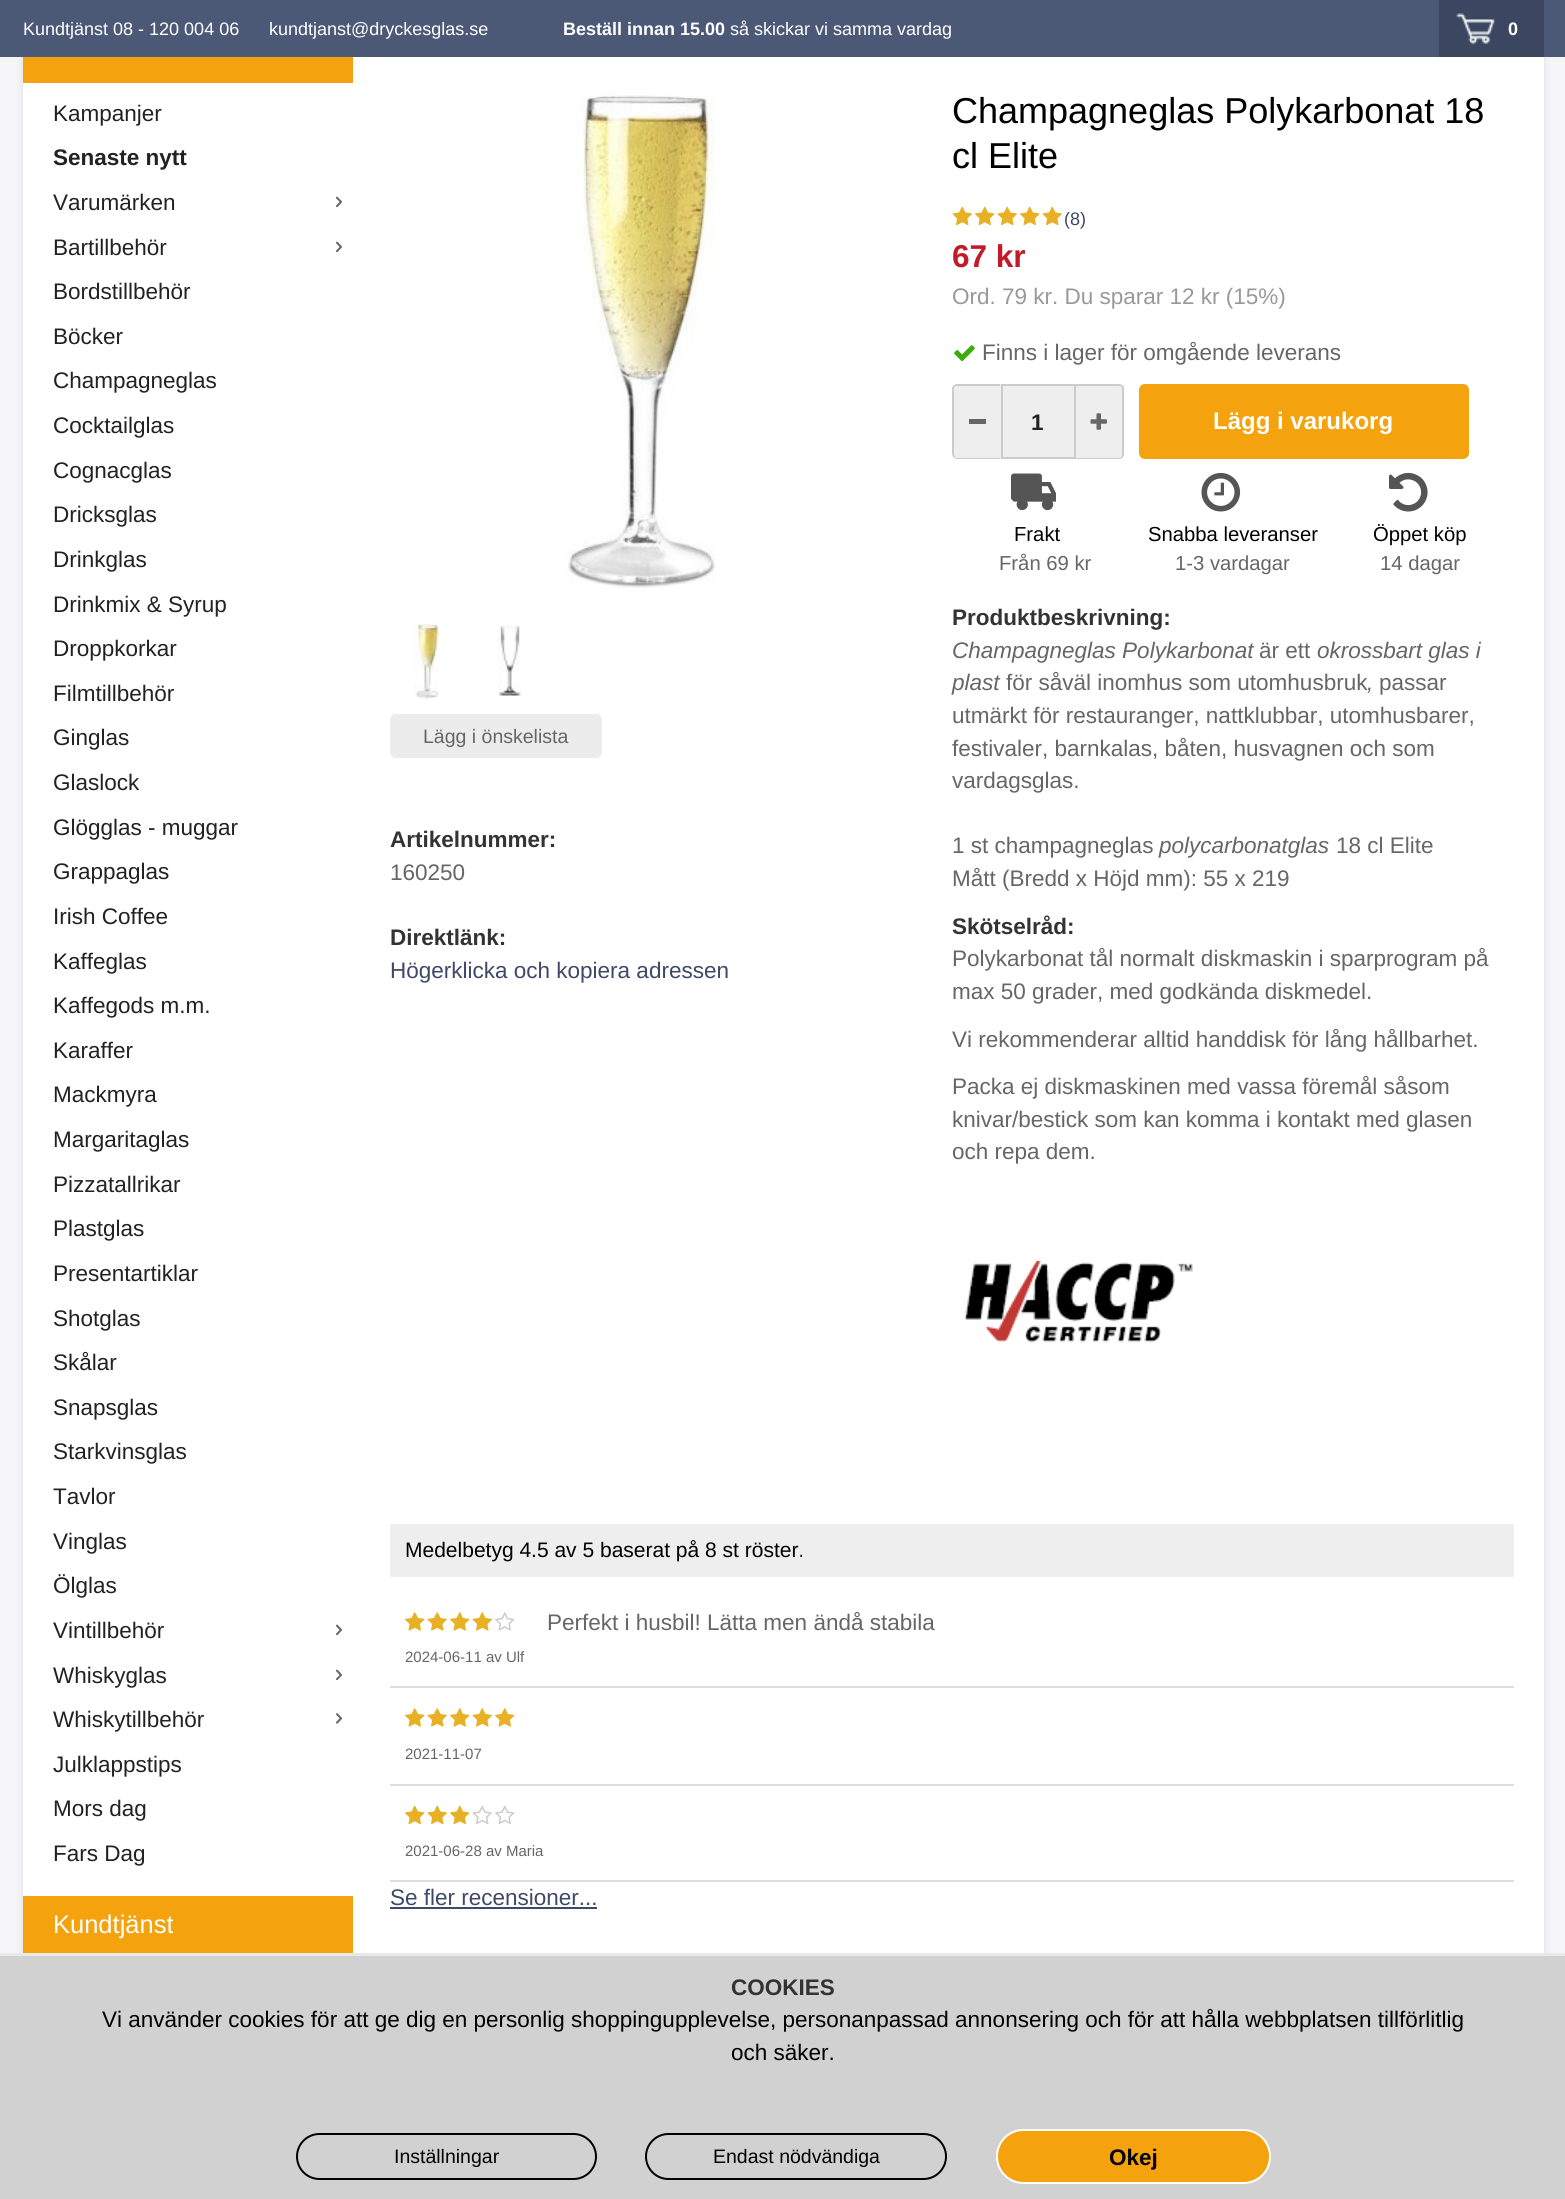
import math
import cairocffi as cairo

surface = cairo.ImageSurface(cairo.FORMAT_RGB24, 1565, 2199)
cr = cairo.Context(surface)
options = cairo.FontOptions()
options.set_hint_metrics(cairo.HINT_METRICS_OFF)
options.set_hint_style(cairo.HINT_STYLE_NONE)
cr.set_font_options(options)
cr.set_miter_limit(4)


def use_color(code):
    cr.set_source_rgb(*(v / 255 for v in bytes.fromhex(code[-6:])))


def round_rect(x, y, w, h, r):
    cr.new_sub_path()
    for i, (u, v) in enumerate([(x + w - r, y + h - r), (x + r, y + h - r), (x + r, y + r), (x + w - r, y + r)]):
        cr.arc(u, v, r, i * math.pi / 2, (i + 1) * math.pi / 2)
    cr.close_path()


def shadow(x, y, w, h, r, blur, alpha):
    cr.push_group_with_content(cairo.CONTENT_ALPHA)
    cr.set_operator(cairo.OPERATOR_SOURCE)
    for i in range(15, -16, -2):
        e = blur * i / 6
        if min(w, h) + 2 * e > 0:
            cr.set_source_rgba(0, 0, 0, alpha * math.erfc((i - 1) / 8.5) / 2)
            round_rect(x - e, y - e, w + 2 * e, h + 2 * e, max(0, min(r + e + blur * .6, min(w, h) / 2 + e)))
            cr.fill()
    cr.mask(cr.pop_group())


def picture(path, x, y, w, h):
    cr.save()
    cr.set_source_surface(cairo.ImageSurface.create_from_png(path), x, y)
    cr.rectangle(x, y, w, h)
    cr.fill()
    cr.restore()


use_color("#f6f6f8")
cr.paint()
use_color("#000000")
shadow(23, 3, 1521, 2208, 0, 4, 0.1)
use_color("#4b5876")
cr.rectangle(0, 0, 1565, 57)
cr.fill()
cr.select_font_face("Arimo")
cr.set_font_size(18)
use_color("#ffffff")
cr.move_to(23, 35)
cr.show_text("Kundtjänst 08 - 120 004 06")
cr.move_to(269, 35)
cr.show_text("kundtjanst@dryckesglas.se")
cr.select_font_face("Arimo", cairo.FONT_SLANT_NORMAL, cairo.FONT_WEIGHT_BOLD)
cr.move_to(563, 35)
cr.show_text("Beställ innan 15.00")
cr.select_font_face("Arimo")
cr.move_to(730, 35)
cr.show_text("så skickar vi samma vardag")
use_color("#3b4761")
cr.rectangle(1439, 0, 105, 57)
cr.fill()
picture("img1.png", 1456, 13, 39, 32)
cr.select_font_face("Arimo", cairo.FONT_SLANT_NORMAL, cairo.FONT_WEIGHT_BOLD)
use_color("#ffffff")
cr.move_to(1508, 35)
cr.show_text("0")
cr.rectangle(23, 57, 1521, 1896)
cr.fill()
use_color("#f4a20d")
cr.rectangle(23, 57, 330, 26)
cr.fill()
cr.select_font_face("Arimo")
cr.set_font_size(22.5)
use_color("#222222")
cr.move_to(53, 121)
cr.show_text("Kampanjer")
cr.select_font_face("Arimo", cairo.FONT_SLANT_NORMAL, cairo.FONT_WEIGHT_BOLD)
cr.move_to(53, 165)
cr.show_text("Senaste nytt")
cr.select_font_face("Arimo")
cr.move_to(53, 210)
cr.show_text("Varumärken")
picture("img2.png", 336, 196, 6, 12)
cr.move_to(53, 255)
cr.show_text("Bartillbehör")
picture("img2.png", 336, 241, 6, 12)
cr.move_to(53, 299)
cr.show_text("Bordstillbehör")
cr.move_to(53, 344)
cr.show_text("Böcker")
cr.move_to(53, 388)
cr.show_text("Champagneglas")
cr.move_to(53, 433)
cr.show_text("Cocktailglas")
cr.move_to(53, 478)
cr.show_text("Cognacglas")
cr.move_to(53, 522)
cr.show_text("Dricksglas")
cr.move_to(53, 567)
cr.show_text("Drinkglas")
cr.move_to(53, 612)
cr.show_text("Drinkmix & Syrup")
cr.move_to(53, 656)
cr.show_text("Droppkorkar")
cr.move_to(53, 701)
cr.show_text("Filmtillbehör")
cr.move_to(53, 745)
cr.show_text("Ginglas")
cr.move_to(53, 790)
cr.show_text("Glaslock")
cr.move_to(53, 835)
cr.show_text("Glögglas - muggar")
cr.move_to(53, 879)
cr.show_text("Grappaglas")
cr.move_to(53, 924)
cr.show_text("Irish Coffee")
cr.move_to(53, 969)
cr.show_text("Kaffeglas")
cr.move_to(53, 1013)
cr.show_text("Kaffegods m.m.")
cr.move_to(53, 1058)
cr.show_text("Karaffer")
cr.move_to(53, 1102)
cr.show_text("Mackmyra")
cr.move_to(53, 1147)
cr.show_text("Margaritaglas")
cr.move_to(53, 1192)
cr.show_text("Pizzatallrikar")
cr.move_to(53, 1236)
cr.show_text("Plastglas")
cr.move_to(53, 1281)
cr.show_text("Presentartiklar")
cr.move_to(53, 1326)
cr.show_text("Shotglas")
cr.move_to(53, 1370)
cr.show_text("Skålar")
cr.move_to(53, 1415)
cr.show_text("Snapsglas")
cr.move_to(53, 1459)
cr.show_text("Starkvinsglas")
cr.move_to(53, 1504)
cr.show_text("Tavlor")
cr.move_to(53, 1549)
cr.show_text("Vinglas")
cr.move_to(53, 1593)
cr.show_text("Ölglas")
cr.move_to(53, 1638)
cr.show_text("Vintillbehör")
picture("img2.png", 336, 1624, 6, 12)
cr.move_to(53, 1683)
cr.show_text("Whiskyglas")
picture("img2.png", 336, 1669, 6, 12)
cr.move_to(53, 1727)
cr.show_text("Whiskytillbehör")
picture("img3.png", 336, 1713, 6, 11)
cr.move_to(53, 1772)
cr.show_text("Julklappstips")
cr.move_to(53, 1816)
cr.show_text("Mors dag")
cr.move_to(53, 1861)
cr.show_text("Fars Dag")
use_color("#f4a20d")
cr.rectangle(23, 1896, 330, 57)
cr.fill()
cr.set_font_size(25.5)
use_color("#ffffff")
cr.move_to(53, 1933)
cr.show_text("Kundtjänst")
picture("img4.png", 567, 95, 149, 494)
picture("img5.png", 414, 623, 26, 76)
picture("img6.png", 497, 624, 24, 72)
cr.set_font_size(36)
use_color("#000000")
cr.move_to(952, 123)
cr.show_text("Champagneglas Polykarbonat 18")
cr.move_to(952, 168)
cr.show_text("cl Elite")
picture("img7.png", 952, 206, 20, 20)
picture("img8.png", 975, 206, 20, 20)
picture("img7.png", 997, 206, 20, 20)
picture("img8.png", 1020, 206, 20, 20)
picture("img7.png", 1042, 206, 20, 20)
cr.set_font_size(18)
use_color("#3d4967")
cr.move_to(1064, 225)
cr.show_text("(8)")
cr.select_font_face("Arimo", cairo.FONT_SLANT_NORMAL, cairo.FONT_WEIGHT_BOLD)
cr.set_font_size(31.5)
use_color("#c21b27")
cr.move_to(952, 267)
cr.show_text("67 kr")
cr.select_font_face("Arimo")
cr.set_font_size(22.5)
use_color("#999999")
cr.move_to(952, 304)
cr.show_text("Ord. 79 kr. Du sparar 12 kr (15%)")
picture("img9.png", 954, 345, 21, 16)
use_color("#666666")
cr.move_to(982, 360)
cr.show_text("Finns i lager för omgående leverans")
use_color("#eeeeee")
cr.new_path()
cr.move_to(958, 384)
cr.line_to(1001, 384)
cr.line_to(1001, 459)
cr.line_to(958, 459)
cr.curve_to(955, 459, 953, 457, 953, 454)
cr.line_to(953, 389)
cr.curve_to(953, 386, 955, 384, 958, 384)
cr.close_path()
cr.fill()
use_color("#cccccc")
cr.set_fill_rule(cairo.FILL_RULE_EVEN_ODD)
cr.new_path()
cr.move_to(957, 384)
cr.line_to(1000, 384)
cr.line_to(1000, 459)
cr.line_to(957, 459)
cr.curve_to(955, 459, 952, 457, 952, 454)
cr.line_to(952, 388)
cr.curve_to(952, 386, 955, 384, 957, 384)
cr.close_path()
cr.move_to(957, 386)
cr.line_to(1000, 386)
cr.line_to(1000, 458)
cr.line_to(957, 458)
cr.curve_to(955, 458, 954, 456, 954, 454)
cr.line_to(954, 388)
cr.curve_to(954, 387, 955, 386, 957, 386)
cr.close_path()
cr.fill()
use_color("#666666")
cr.rectangle(969, 419, 17, 5)
cr.fill()
use_color("#eeeeee")
cr.rectangle(1002, 385, 73, 73)
cr.fill_preserve()
use_color("#cccccc")
cr.stroke()
cr.select_font_face("Arimo", cairo.FONT_SLANT_NORMAL, cairo.FONT_WEIGHT_BOLD)
use_color("#222222")
cr.move_to(1031, 430)
cr.show_text("1")
use_color("#eeeeee")
cr.new_path()
cr.move_to(1076, 384)
cr.line_to(1119, 384)
cr.curve_to(1122, 384, 1124, 386, 1124, 389)
cr.line_to(1124, 454)
cr.curve_to(1124, 457, 1122, 459, 1119, 459)
cr.line_to(1076, 459)
cr.close_path()
cr.fill()
use_color("#cccccc")
cr.new_path()
cr.move_to(1076, 384)
cr.line_to(1119, 384)
cr.curve_to(1121, 384, 1124, 386, 1124, 388)
cr.line_to(1124, 454)
cr.curve_to(1124, 457, 1121, 459, 1119, 459)
cr.line_to(1076, 459)
cr.close_path()
cr.move_to(1076, 386)
cr.line_to(1119, 386)
cr.curve_to(1121, 386, 1122, 387, 1122, 388)
cr.line_to(1122, 454)
cr.curve_to(1122, 456, 1121, 458, 1119, 458)
cr.line_to(1076, 458)
cr.close_path()
cr.fill()
picture("img10.png", 1090, 413, 17, 17)
use_color("#f4a20d")
round_rect(1139, 384, 330, 75, 6)
cr.fill()
cr.set_font_size(24)
use_color("#ffffff")
cr.move_to(1213, 429)
cr.show_text("Lägg i varukorg")
picture("img11.png", 1011, 473, 45, 38)
cr.select_font_face("Arimo")
cr.set_font_size(20.25)
use_color("#000000")
cr.move_to(1014, 541)
cr.show_text("Frakt")
use_color("#666666")
cr.move_to(999, 570)
cr.show_text("Från 69 kr")
picture("img12.png", 1201, 472, 40, 40)
use_color("#000000")
cr.move_to(1148, 541)
cr.show_text("Snabba leveranser")
use_color("#666666")
cr.move_to(1175, 570)
cr.show_text("1-3 vardagar")
picture("img13.png", 1389, 472, 39, 40)
use_color("#000000")
cr.move_to(1373, 541)
cr.show_text("Öppet köp")
use_color("#666666")
cr.move_to(1380, 570)
cr.show_text("14 dagar")
cr.select_font_face("Arimo", cairo.FONT_SLANT_NORMAL, cairo.FONT_WEIGHT_BOLD)
cr.set_font_size(22.5)
use_color("#333333")
cr.move_to(952, 625)
cr.show_text("Produktbeskrivning:")
cr.select_font_face("Arimo", cairo.FONT_SLANT_ITALIC)
use_color("#666666")
cr.move_to(952, 658)
cr.show_text("Champagneglas Polykarbonat")
cr.select_font_face("Arimo")
cr.move_to(1259, 658)
cr.show_text("är ett")
cr.select_font_face("Arimo", cairo.FONT_SLANT_ITALIC)
cr.move_to(1317, 658)
cr.show_text("okrossbart glas i")
cr.move_to(952, 690)
cr.show_text("plast")
cr.select_font_face("Arimo")
cr.move_to(1006, 690)
cr.show_text("för såväl inomhus som utomhusbruk")
cr.select_font_face("Arimo", cairo.FONT_SLANT_ITALIC)
cr.move_to(1367, 690)
cr.show_text(",")
cr.select_font_face("Arimo")
cr.move_to(1379, 690)
cr.show_text("passar")
cr.move_to(952, 723)
cr.show_text("utmärkt för restauranger, nattklubbar, utomhusbarer,")
cr.move_to(952, 756)
cr.show_text("festivaler, barnkalas, båten, husvagnen och som")
cr.move_to(952, 788)
cr.show_text("vardagsglas.")
cr.move_to(952, 853)
cr.show_text("1 st champagneglas")
cr.select_font_face("Arimo", cairo.FONT_SLANT_ITALIC)
cr.move_to(1159, 853)
cr.show_text("polycarbonatglas")
cr.select_font_face("Arimo")
cr.move_to(1336, 853)
cr.show_text("18 cl Elite")
cr.move_to(952, 886)
cr.show_text("Mått (Bredd x Höjd mm): 55 x 219")
cr.select_font_face("Arimo", cairo.FONT_SLANT_NORMAL, cairo.FONT_WEIGHT_BOLD)
use_color("#333333")
cr.move_to(952, 934)
cr.show_text("Skötselråd:")
cr.select_font_face("Arimo")
use_color("#666666")
cr.move_to(952, 966)
cr.show_text("Polykarbonat tål normalt diskmaskin i sparprogram på")
cr.move_to(952, 999)
cr.show_text("max 50 grader, med godkända diskmedel.")
cr.move_to(952, 1047)
cr.show_text("Vi rekommenderar alltid handdisk för lång hållbarhet.")
cr.move_to(952, 1094)
cr.show_text("Packa ej diskmaskinen med vassa föremål såsom")
cr.move_to(952, 1127)
cr.show_text("knivar/bestick som kan komma i kontakt med glasen")
cr.move_to(952, 1159)
cr.show_text("och repa dem.")
picture("img14.png", 964, 1260, 229, 83)
use_color("#ececec")
round_rect(390, 714, 212, 44, 6)
cr.fill()
cr.set_font_size(19.5)
use_color("#666666")
cr.move_to(423, 743)
cr.show_text("Lägg i önskelista")
cr.select_font_face("Arimo", cairo.FONT_SLANT_NORMAL, cairo.FONT_WEIGHT_BOLD)
cr.set_font_size(22.5)
use_color("#333333")
cr.move_to(390, 847)
cr.show_text("Artikelnummer:")
cr.select_font_face("Arimo")
use_color("#666666")
cr.move_to(390, 880)
cr.show_text("160250")
cr.select_font_face("Arimo", cairo.FONT_SLANT_NORMAL, cairo.FONT_WEIGHT_BOLD)
use_color("#333333")
cr.move_to(390, 945)
cr.show_text("Direktlänk:")
cr.select_font_face("Arimo")
use_color("#3d4967")
cr.move_to(390, 978)
cr.show_text("Högerklicka och kopiera adressen")
use_color("#eeeeee")
cr.rectangle(390, 1524, 1124, 53)
cr.fill()
cr.set_font_size(21)
use_color("#000000")
cr.move_to(405, 1557)
cr.show_text("Medelbetyg 4.5 av 5 baserat på 8 st röster.")
use_color("#dddddd")
cr.rectangle(390, 1686, 1124, 2)
cr.fill()
cr.set_font_size(22.5)
use_color("#666666")
cr.move_to(547, 1630)
cr.show_text("Perfekt i husbil! Lätta men ändå stabila")
picture("img15.png", 405, 1612, 20, 19)
picture("img16.png", 427, 1612, 20, 19)
picture("img15.png", 450, 1612, 20, 19)
picture("img16.png", 472, 1612, 20, 19)
picture("img17.png", 495, 1612, 20, 19)
cr.set_font_size(15)
cr.move_to(405, 1662)
cr.show_text("2024-06-11 av Ulf")
use_color("#dddddd")
cr.rectangle(390, 1784, 1124, 2)
cr.fill()
picture("img15.png", 405, 1708, 20, 19)
picture("img16.png", 427, 1708, 20, 19)
picture("img15.png", 450, 1708, 20, 19)
picture("img16.png", 472, 1708, 20, 19)
picture("img15.png", 495, 1708, 20, 19)
use_color("#666666")
cr.move_to(405, 1759)
cr.show_text("2021-11-07")
use_color("#dddddd")
cr.rectangle(390, 1880, 1124, 2)
cr.fill()
picture("img8.png", 405, 1805, 20, 20)
picture("img7.png", 427, 1805, 20, 20)
picture("img8.png", 450, 1805, 20, 20)
picture("img18.png", 472, 1805, 20, 20)
picture("img19.png", 495, 1805, 20, 20)
use_color("#666666")
cr.move_to(405, 1856)
cr.show_text("2021-06-28 av Maria")
cr.set_font_size(22.5)
use_color("#3d4967")
cr.move_to(390, 1905)
cr.show_text("Se fler recensioner...")
cr.rectangle(390, 1907, 207, 2)
cr.fill()
use_color("#d1d1d1")
cr.rectangle(0, 1956, 1565, 243)
cr.fill()
use_color("#e9e9e9")
cr.rectangle(0, 1953, 1565, 3)
cr.fill()
cr.select_font_face("Liberation Sans", cairo.FONT_SLANT_NORMAL, cairo.FONT_WEIGHT_BOLD)
use_color("#333333")
cr.move_to(731, 1995)
cr.show_text("COOKIES")
cr.select_font_face("Liberation Sans")
use_color("#000000")
cr.move_to(102, 2027)
cr.show_text("Vi använder cookies för att ge dig en personlig shoppingupplevelse, personanpassad annonsering och för att hålla webbplatsen tillförlitlig")
cr.move_to(731, 2060)
cr.show_text("och säker.")
round_rect(297, 2134, 299, 45, 22.5)
cr.stroke()
cr.set_font_size(19.5)
cr.move_to(394, 2163)
cr.show_text("Inställningar")
round_rect(646, 2134, 300, 45, 22.5)
cr.stroke()
cr.move_to(713, 2163)
cr.show_text("Endast nödvändiga")
use_color("#f4a20d")
round_rect(997, 2130, 273, 53, 26.5)
cr.fill_preserve()
use_color("#ffffff")
cr.stroke()
cr.select_font_face("Liberation Sans", cairo.FONT_SLANT_NORMAL, cairo.FONT_WEIGHT_BOLD)
cr.set_font_size(22.5)
use_color("#000000")
cr.move_to(1109, 2165)
cr.show_text("Okej")
surface.write_to_png("result.png")
